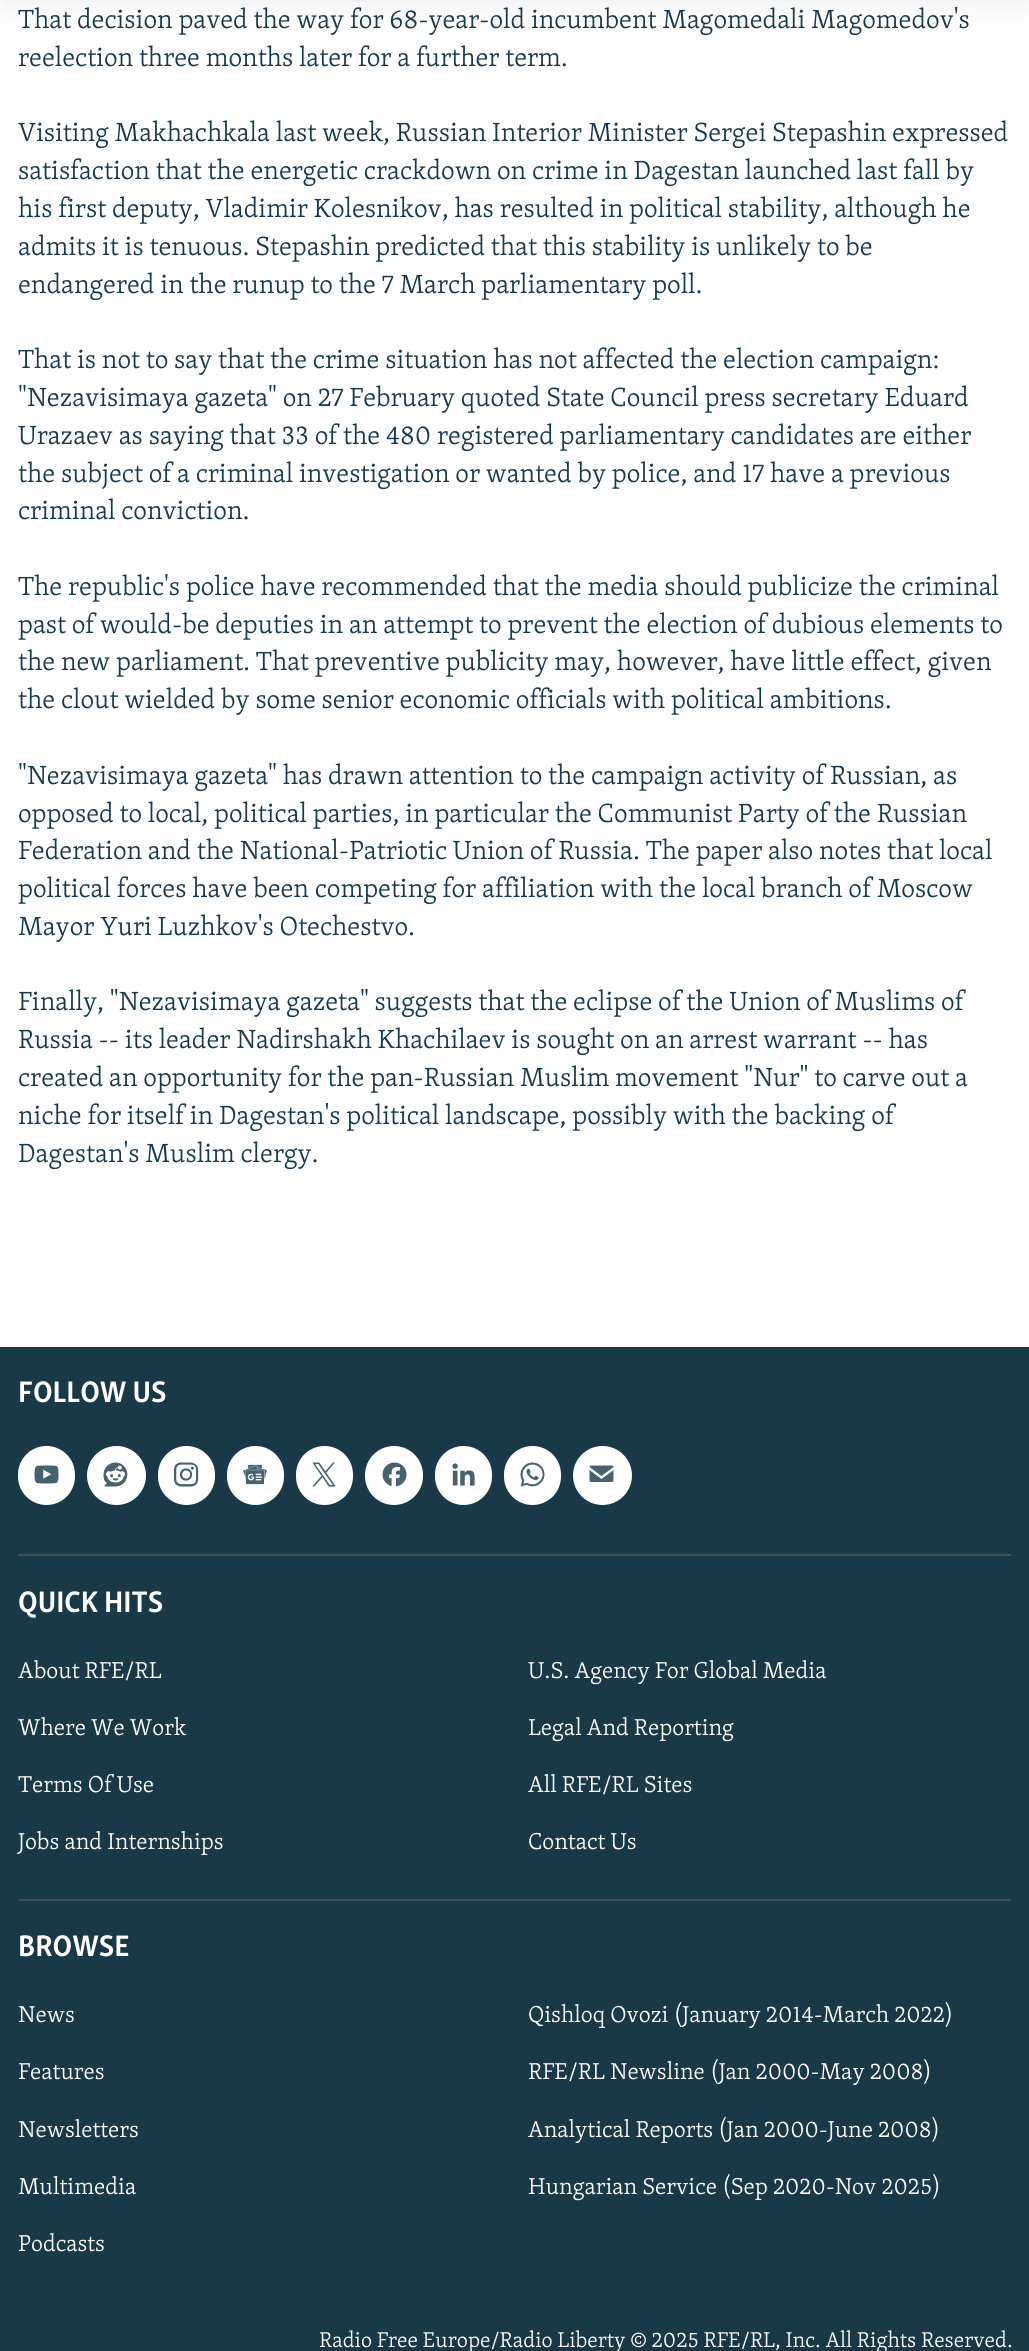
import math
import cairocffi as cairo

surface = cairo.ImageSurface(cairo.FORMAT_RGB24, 1029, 2351)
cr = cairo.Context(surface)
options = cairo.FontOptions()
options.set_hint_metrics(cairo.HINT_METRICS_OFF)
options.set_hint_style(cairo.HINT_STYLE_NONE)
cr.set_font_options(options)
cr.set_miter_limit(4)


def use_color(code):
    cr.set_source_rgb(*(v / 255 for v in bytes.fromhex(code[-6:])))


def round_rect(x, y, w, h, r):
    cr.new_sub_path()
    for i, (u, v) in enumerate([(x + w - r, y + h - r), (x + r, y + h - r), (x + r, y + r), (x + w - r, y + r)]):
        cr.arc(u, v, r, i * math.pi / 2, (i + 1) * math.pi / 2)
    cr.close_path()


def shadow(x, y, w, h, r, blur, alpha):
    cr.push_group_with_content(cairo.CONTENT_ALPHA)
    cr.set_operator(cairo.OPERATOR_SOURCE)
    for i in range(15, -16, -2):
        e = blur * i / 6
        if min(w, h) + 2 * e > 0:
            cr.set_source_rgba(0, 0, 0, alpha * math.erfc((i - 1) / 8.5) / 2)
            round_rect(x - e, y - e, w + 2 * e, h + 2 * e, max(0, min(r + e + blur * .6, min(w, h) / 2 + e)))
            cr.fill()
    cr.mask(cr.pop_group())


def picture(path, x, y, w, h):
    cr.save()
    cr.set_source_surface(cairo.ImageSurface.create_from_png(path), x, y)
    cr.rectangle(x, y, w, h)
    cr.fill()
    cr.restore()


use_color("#ffffff")
cr.paint()
use_color("#000000")
shadow(0, -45, 1029, 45, 0, 15, 0.1)
use_color("#1a3948")
cr.rectangle(0, 1347, 1029, 1004)
cr.fill()
use_color("#000000")
shadow(0, 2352, 1029, 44, 0, 15, 0.1)
cr.select_font_face("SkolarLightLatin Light")
cr.set_font_size(27)
use_color("#1a3948")
cr.move_to(18, 28)
cr.show_text("That decision paved the way for 68-year-old incumbent Magomedali Magomedov's")
cr.move_to(18, 66)
cr.show_text("reelection three months later for a further term.")
cr.move_to(18, 141)
cr.show_text("Visiting Makhachkala last week, Russian Interior Minister Sergei Stepashin expressed")
cr.move_to(18, 179)
cr.show_text("satisfaction that the energetic crackdown on crime in Dagestan launched last fall by")
cr.move_to(18, 217)
cr.show_text("his first deputy, Vladimir Kolesnikov, has resulted in political stability, although he")
cr.move_to(18, 255)
cr.show_text("admits it is tenuous. Stepashin predicted that this stability is unlikely to be")
cr.move_to(18, 293)
cr.show_text("endangered in the runup to the 7 March parliamentary poll.")
cr.move_to(18, 368)
cr.show_text("That is not to say that the crime situation has not affected the election campaign:")
cr.move_to(18, 406)
cr.show_text("\"Nezavisimaya gazeta\" on 27 February quoted State Council press secretary Eduard")
cr.move_to(18, 444)
cr.show_text("Urazaev as saying that 33 of the 480 registered parliamentary candidates are either")
cr.move_to(18, 482)
cr.show_text("the subject of a criminal investigation or wanted by police, and 17 have a previous")
cr.move_to(18, 519)
cr.show_text("criminal conviction.")
cr.move_to(18, 595)
cr.show_text("The republic's police have recommended that the media should publicize the criminal")
cr.move_to(18, 633)
cr.show_text("past of would-be deputies in an attempt to prevent the election of dubious elements to")
cr.move_to(18, 670)
cr.show_text("the new parliament. That preventive publicity may, however, have little effect, given")
cr.move_to(18, 708)
cr.show_text("the clout wielded by some senior economic officials with political ambitions.")
cr.move_to(18, 784)
cr.show_text("\"Nezavisimaya gazeta\" has drawn attention to the campaign activity of Russian, as")
cr.move_to(18, 822)
cr.show_text("opposed to local, political parties, in particular the Communist Party of the Russian")
cr.move_to(18, 859)
cr.show_text("Federation and the National-Patriotic Union of Russia. The paper also notes that local")
cr.move_to(18, 897)
cr.show_text("political forces have been competing for affiliation with the local branch of Moscow")
cr.move_to(18, 935)
cr.show_text("Mayor Yuri Luzhkov's Otechestvo.")
cr.move_to(18, 1010)
cr.show_text("Finally, \"Nezavisimaya gazeta\" suggests that the eclipse of the Union of Muslims of")
cr.move_to(18, 1048)
cr.show_text("Russia -- its leader Nadirshakh Khachilaev is sought on an arrest warrant -- has")
cr.move_to(18, 1086)
cr.show_text("created an opportunity for the pan-Russian Muslim movement \"Nur\" to carve out a")
cr.move_to(18, 1124)
cr.show_text("niche for itself in Dagestan's political landscape, possibly with the backing of")
cr.move_to(18, 1162)
cr.show_text("Dagestan's Muslim clergy.")
cr.select_font_face("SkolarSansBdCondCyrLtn", cairo.FONT_SLANT_NORMAL, cairo.FONT_WEIGHT_BOLD)
cr.set_font_size(30.5)
use_color("#ffffff")
cr.move_to(18, 1402)
cr.show_text("FOLLOW US")
round_rect(18, 1446, 57, 59, 28.5)
cr.fill()
picture("img1.png", 34, 1465, 25, 19)
cr.arc(116.5, 1475.5, 29.5, 0, 2 * math.pi)
cr.fill()
picture("img2.png", 103, 1462, 25, 25)
round_rect(158, 1446, 57, 59, 28.5)
cr.fill()
picture("img3.png", 174, 1462, 25, 25)
round_rect(227, 1446, 57, 59, 28.5)
cr.fill()
picture("img4.png", 243, 1464, 24, 21)
round_rect(296, 1446, 57, 59, 28.5)
cr.fill()
picture("img5.png", 312, 1462, 24, 25)
round_rect(365, 1446, 58, 59, 29)
cr.fill()
picture("img6.png", 382, 1462, 25, 25)
round_rect(435, 1446, 57, 59, 28.5)
cr.fill()
picture("img7.png", 452, 1463, 23, 23)
round_rect(504, 1446, 57, 59, 28.5)
cr.fill()
picture("img8.png", 520, 1462, 25, 25)
cr.arc(602.5, 1475.5, 29.5, 0, 2 * math.pi)
cr.fill()
picture("img9.png", 589, 1465, 25, 17)
use_color("#3e4f57")
cr.rectangle(18, 1554, 993, 2)
cr.fill()
use_color("#ffffff")
cr.move_to(18, 1612)
cr.show_text("QUICK HITS")
cr.select_font_face("SkolarLightLatin Light")
cr.set_font_size(23.6)
cr.move_to(18, 1678)
cr.show_text("About RFE/RL")
cr.move_to(528, 1678)
cr.show_text("U.S. Agency For Global Media")
cr.move_to(18, 1735)
cr.show_text("Where We Work")
cr.move_to(528, 1735)
cr.show_text("Legal And Reporting")
cr.move_to(18, 1792)
cr.show_text("Terms Of Use")
cr.move_to(528, 1792)
cr.show_text("All RFE/RL Sites")
cr.move_to(18, 1849)
cr.show_text("Jobs and Internships")
cr.move_to(528, 1849)
cr.show_text("Contact Us")
use_color("#3e4f57")
cr.rectangle(18, 1899, 993, 2)
cr.fill()
cr.select_font_face("SkolarSansBdCondCyrLtn", cairo.FONT_SLANT_NORMAL, cairo.FONT_WEIGHT_BOLD)
cr.set_font_size(30.5)
use_color("#ffffff")
cr.move_to(18, 1956)
cr.show_text("BROWSE")
cr.select_font_face("SkolarLightLatin Light")
cr.set_font_size(23.6)
cr.move_to(18, 2022)
cr.show_text("News")
cr.move_to(528, 2022)
cr.show_text("Qishloq Ovozi (January 2014-March 2022)")
cr.move_to(18, 2079)
cr.show_text("Features")
cr.move_to(528, 2079)
cr.show_text("RFE/RL Newsline (Jan 2000-May 2008)")
cr.move_to(18, 2137)
cr.show_text("Newsletters")
cr.move_to(528, 2137)
cr.show_text("Analytical Reports (Jan 2000-June 2008)")
cr.move_to(18, 2194)
cr.show_text("Multimedia")
cr.move_to(528, 2194)
cr.show_text("Hungarian Service (Sep 2020-Nov 2025)")
cr.move_to(18, 2251)
cr.show_text("Podcasts")
cr.set_font_size(21.95)
cr.move_to(319, 2347)
cr.show_text("Radio Free Europe/Radio Liberty © 2025 RFE/RL, Inc. All Rights Reserved.")
surface.write_to_png("result.png")
